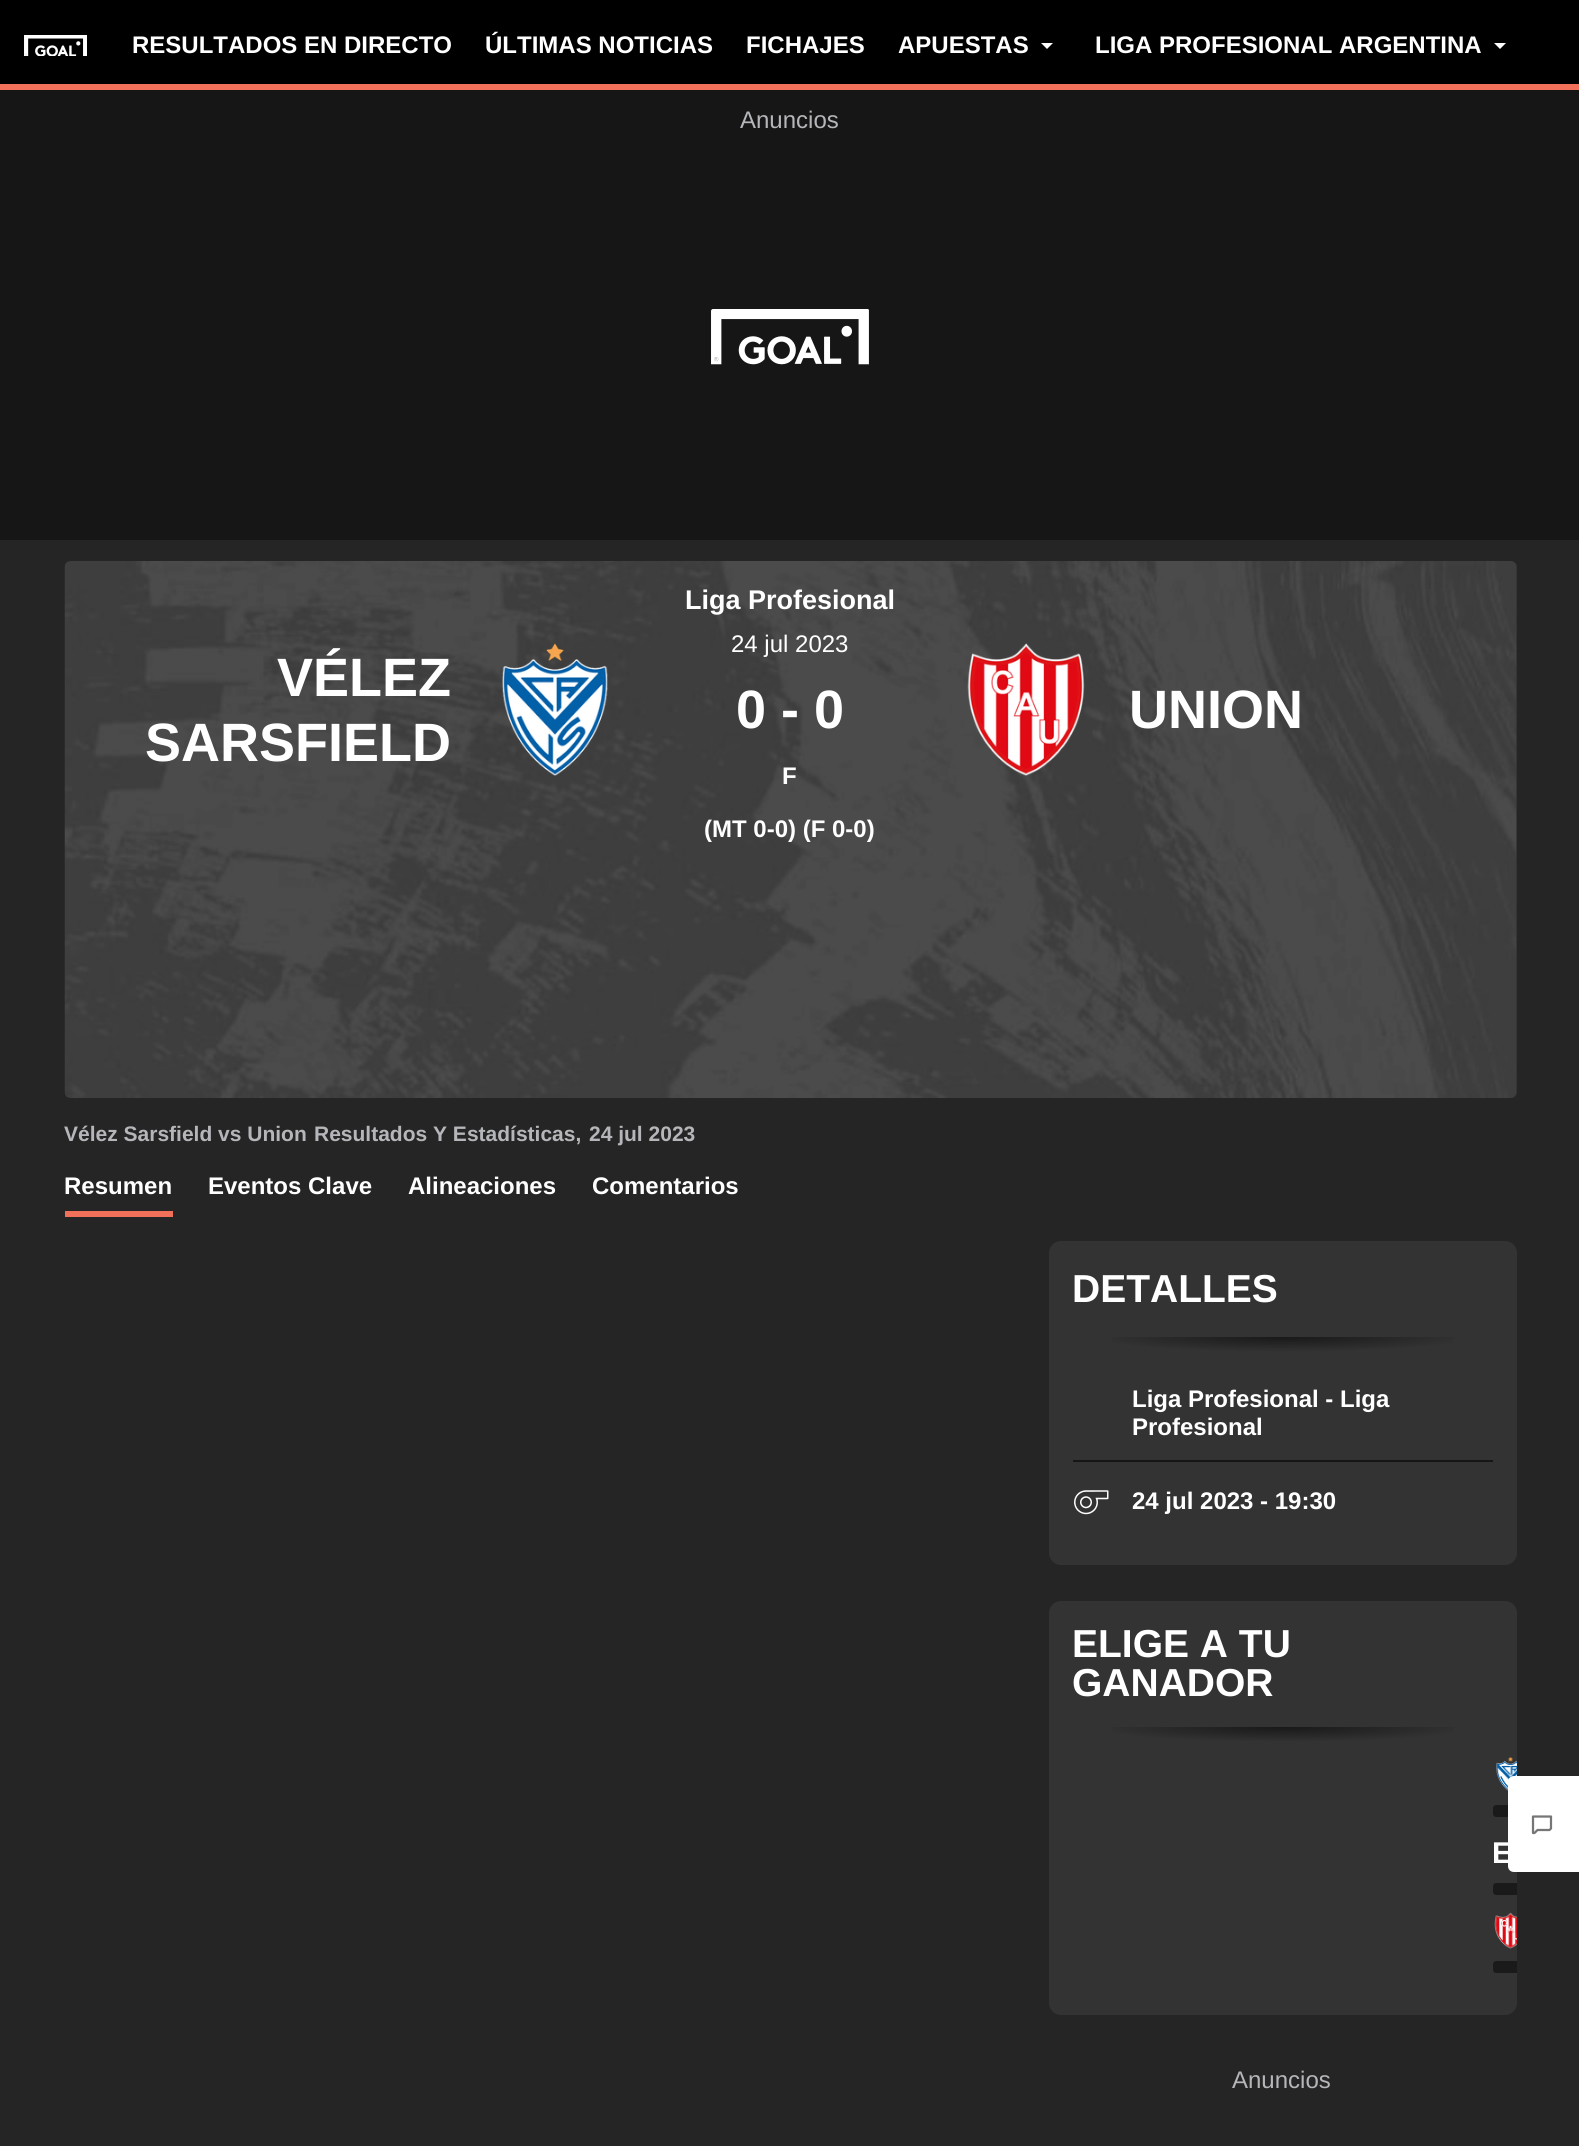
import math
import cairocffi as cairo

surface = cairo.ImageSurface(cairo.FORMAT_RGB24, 1579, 2146)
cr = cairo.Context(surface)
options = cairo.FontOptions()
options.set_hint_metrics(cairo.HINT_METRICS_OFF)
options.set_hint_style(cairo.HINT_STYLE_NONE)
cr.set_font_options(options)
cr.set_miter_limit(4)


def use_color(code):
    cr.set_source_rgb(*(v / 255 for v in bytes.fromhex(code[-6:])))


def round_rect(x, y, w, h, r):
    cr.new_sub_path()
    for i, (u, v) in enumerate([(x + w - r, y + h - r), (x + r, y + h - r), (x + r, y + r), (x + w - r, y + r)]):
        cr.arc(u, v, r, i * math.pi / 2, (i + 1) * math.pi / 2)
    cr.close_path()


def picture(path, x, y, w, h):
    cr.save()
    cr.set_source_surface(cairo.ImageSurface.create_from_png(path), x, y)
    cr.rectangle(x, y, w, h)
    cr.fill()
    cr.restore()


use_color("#252525")
cr.paint()
use_color("#000000")
cr.rectangle(0, 0, 1579, 84)
cr.fill()
use_color("#f0705a")
cr.rectangle(0, 84, 1579, 6)
cr.fill()
picture("img1.png", 24, 35, 63, 21)
cr.select_font_face("Liberation Sans", cairo.FONT_SLANT_NORMAL, cairo.FONT_WEIGHT_BOLD)
cr.set_font_size(24)
use_color("#ffffff")
cr.move_to(132, 53)
cr.show_text("RESULTADOS EN DIRECTO")
cr.move_to(485, 53)
cr.show_text("ÚLTIMAS NOTICIAS")
cr.move_to(746, 53)
cr.show_text("FICHAJES")
cr.move_to(898, 53)
cr.show_text("APUESTAS")
cr.new_path()
cr.move_to(1041, 43)
cr.line_to(1047, 49)
cr.line_to(1053, 43)
cr.close_path()
cr.fill()
cr.move_to(1095, 53)
cr.show_text("LIGA PROFESIONAL ARGENTINA")
cr.new_path()
cr.move_to(1494, 43)
cr.line_to(1500, 49)
cr.line_to(1506, 43)
cr.close_path()
cr.fill()
use_color("#161617")
cr.rectangle(0, 90, 1579, 450)
cr.fill()
cr.select_font_face("Liberation Sans")
use_color("#b5b6ba")
cr.move_to(740, 128)
cr.show_text("Anuncios")
picture("img2.png", 711, 309, 158, 56)
use_color("#333333")
round_rect(65, 561, 1452, 537, 6)
cr.fill()
picture("img3.png", 64, 561, 1453, 537)
cr.select_font_face("Liberation Sans", cairo.FONT_SLANT_NORMAL, cairo.FONT_WEIGHT_BOLD)
cr.set_font_size(27)
use_color("#ffffff")
cr.move_to(685, 609)
cr.show_text("Liga Profesional")
cr.set_font_size(54)
cr.move_to(277, 696)
cr.show_text("VÉLEZ")
cr.move_to(145, 761)
cr.show_text("SARSFIELD")
picture("img4.png", 502, 643, 106, 133)
cr.select_font_face("Liberation Sans")
cr.set_font_size(24)
cr.move_to(731, 652)
cr.show_text("24 jul 2023")
cr.select_font_face("Liberation Sans", cairo.FONT_SLANT_NORMAL, cairo.FONT_WEIGHT_BOLD)
cr.set_font_size(54)
cr.move_to(736, 728)
cr.show_text("0 - 0")
cr.set_font_size(24)
cr.move_to(782, 784)
cr.show_text("F")
picture("img5.png", 967, 643, 118, 133)
cr.set_font_size(54)
cr.move_to(1129, 728)
cr.show_text("UNION")
cr.set_font_size(24)
cr.move_to(704, 837)
cr.show_text("(MT 0-0) (F 0-0)")
cr.set_font_size(21)
use_color("#b5b6ba")
cr.move_to(64, 1141)
cr.show_text("Vélez Sarsfield vs Union")
cr.move_to(314, 1141)
cr.show_text("Resultados Y Estadísticas,")
cr.move_to(589, 1141)
cr.show_text("24 jul 2023")
use_color("#f0705a")
cr.rectangle(65, 1211, 108, 6)
cr.fill()
cr.set_font_size(24)
use_color("#ffffff")
cr.move_to(64, 1194)
cr.show_text("Resumen")
cr.move_to(208, 1194)
cr.show_text("Eventos Clave")
cr.move_to(408, 1194)
cr.show_text("Alineaciones")
cr.move_to(592, 1194)
cr.show_text("Comentarios")
use_color("#333333")
round_rect(1049, 1241, 468, 324, 12)
cr.fill()
cr.set_font_size(39)
use_color("#ffffff")
cr.move_to(1072, 1302)
cr.show_text("DETALLES")
gradient = cairo.RadialGradient(0, 0, 0, 0, 0, 1)
gradient.set_matrix(cairo.Matrix(1 / 378, 0, 0, 1 / 30, -1 * 1283 / 378, -1 * 1337 / 30))
gradient.add_color_stop_rgba(0, 0.098, 0.098, 0.098, 1)
gradient.add_color_stop_rgba(0.25, 0.149, 0.149, 0.149, 1)
gradient.add_color_stop_rgba(0.5, 0.2, 0.2, 0.2, 1)
cr.set_source(gradient)
cr.rectangle(1112, 1337, 342, 14)
cr.fill()
cr.set_font_size(24)
use_color("#ffffff")
cr.move_to(1132, 1407)
cr.show_text("Liga Profesional - Liga")
cr.move_to(1132, 1435)
cr.show_text("Profesional")
use_color("#161617")
cr.rectangle(1073, 1460, 420, 2)
cr.fill()
picture("img6.png", 1074, 1490, 35, 25)
use_color("#ffffff")
cr.move_to(1132, 1509)
cr.show_text("24 jul 2023 - 19:30")
use_color("#333333")
round_rect(1049, 1601, 468, 414, 12)
cr.fill()
cr.set_font_size(39)
use_color("#ffffff")
cr.move_to(1072, 1657)
cr.show_text("ELIGE A TU")
cr.move_to(1072, 1696)
cr.show_text("GANADOR")
gradient = cairo.RadialGradient(0, 0, 0, 0, 0, 1)
gradient.set_matrix(cairo.Matrix(1 / 378, 0, 0, 1 / 30, -1 * 1283 / 378, -1 * 1727 / 30))
gradient.add_color_stop_rgba(0, 0.098, 0.098, 0.098, 1)
gradient.add_color_stop_rgba(0.25, 0.149, 0.149, 0.149, 1)
gradient.add_color_stop_rgba(0.5, 0.2, 0.2, 0.2, 1)
cr.set_source(gradient)
cr.rectangle(1112, 1727, 342, 14)
cr.fill()
picture("img7.png", 1496, 1757, 21, 34)
use_color("#1a1a1a")
cr.new_path()
cr.move_to(1496, 1805)
cr.line_to(1517, 1805)
cr.line_to(1517, 1817)
cr.line_to(1496, 1817)
cr.curve_to(1494.5, 1817, 1493, 1815.5, 1493, 1814)
cr.line_to(1493, 1808)
cr.curve_to(1493, 1806.5, 1494.5, 1805, 1496, 1805)
cr.close_path()
cr.fill()
cr.set_font_size(30)
use_color("#ffffff")
cr.move_to(1492, 1863)
cr.show_text("E")
use_color("#1a1a1a")
cr.new_path()
cr.move_to(1496, 1883)
cr.line_to(1517, 1883)
cr.line_to(1517, 1895)
cr.line_to(1496, 1895)
cr.curve_to(1494.5, 1895, 1493, 1893.5, 1493, 1892)
cr.line_to(1493, 1886)
cr.curve_to(1493, 1884.5, 1494.5, 1883, 1496, 1883)
cr.close_path()
cr.fill()
picture("img8.png", 1494, 1912, 23, 37)
cr.new_path()
cr.move_to(1496, 1961)
cr.line_to(1517, 1961)
cr.line_to(1517, 1973)
cr.line_to(1496, 1973)
cr.curve_to(1494.5, 1973, 1493, 1971.5, 1493, 1970)
cr.line_to(1493, 1964)
cr.curve_to(1493, 1962.5, 1494.5, 1961, 1496, 1961)
cr.close_path()
cr.fill()
cr.select_font_face("Liberation Sans")
cr.set_font_size(24)
use_color("#b5b6ba")
cr.move_to(1232, 2088)
cr.show_text("Anuncios")
use_color("#ffffff")
cr.new_path()
cr.move_to(1514, 1776)
cr.line_to(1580, 1776)
cr.line_to(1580, 1872)
cr.line_to(1514, 1872)
cr.curve_to(1510.5, 1872, 1508, 1869.5, 1508, 1866)
cr.line_to(1508, 1782)
cr.curve_to(1508, 1778.5, 1510.5, 1776, 1514, 1776)
cr.close_path()
cr.fill()
picture("img9.png", 1531, 1815, 22, 20)
surface.write_to_png("result.png")
